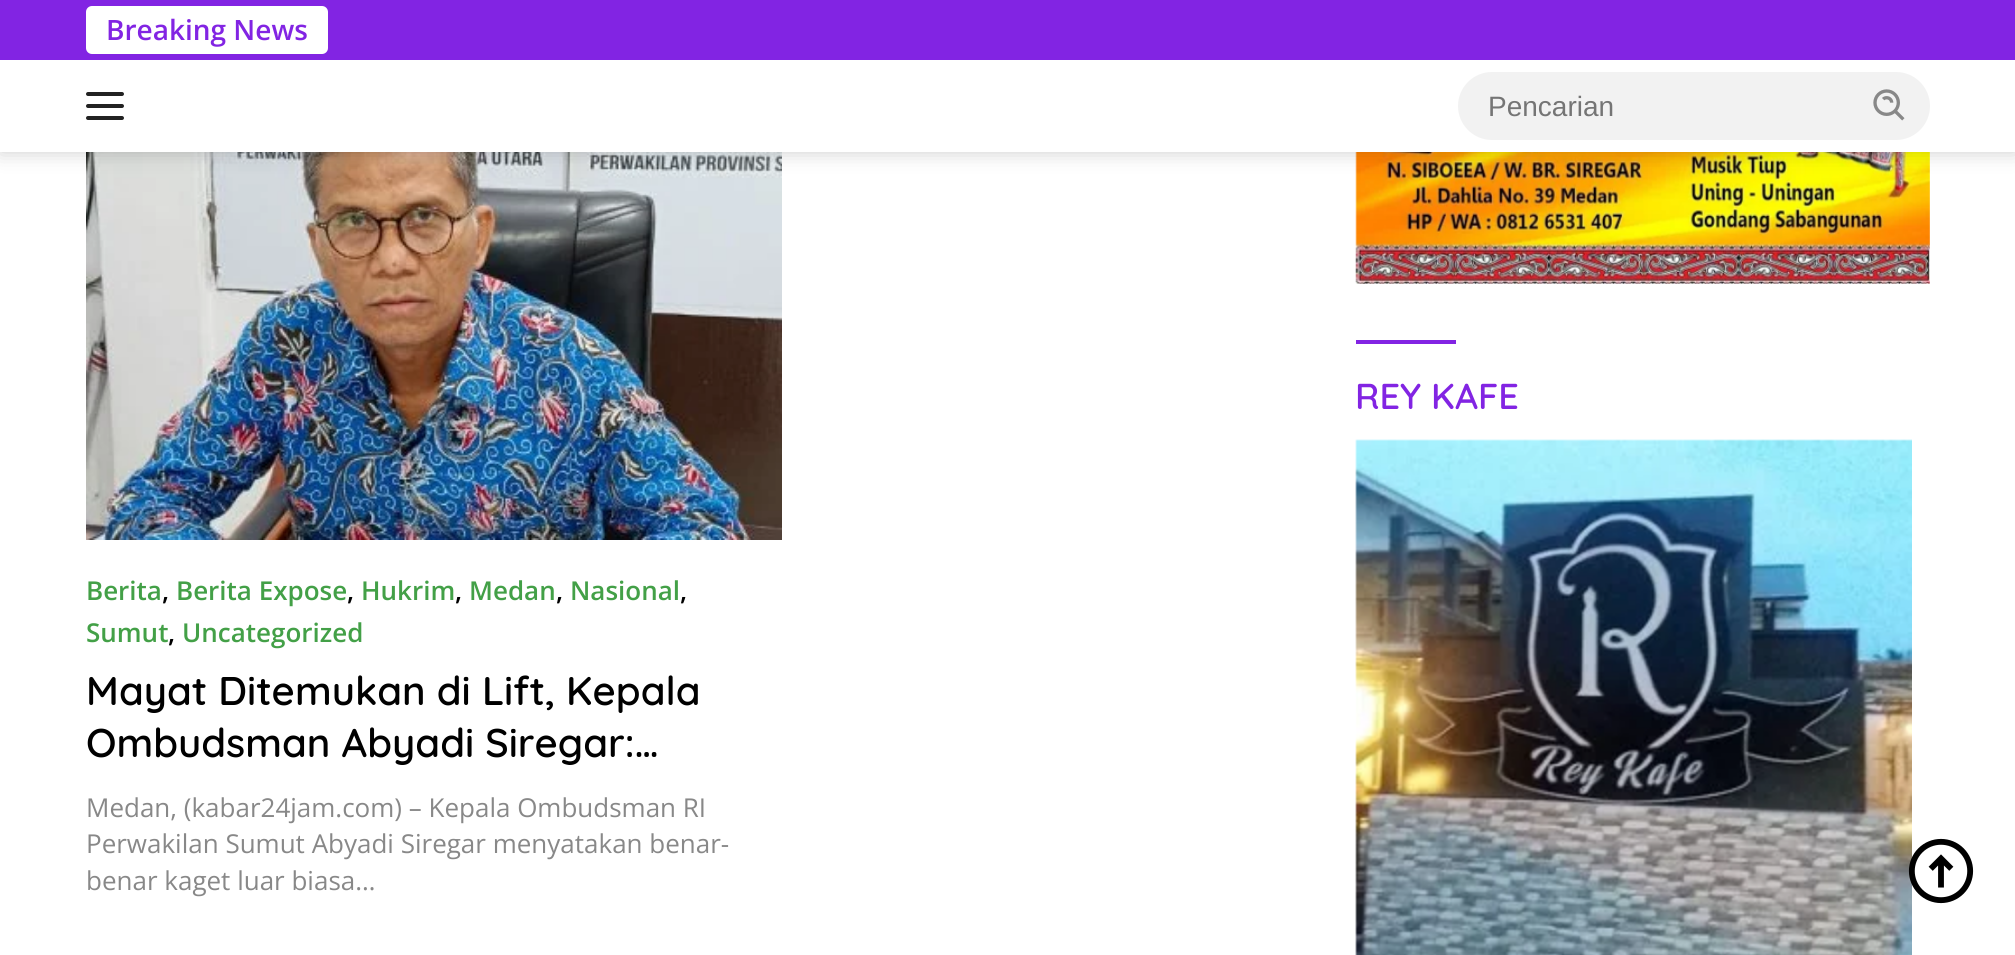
import math
import cairocffi as cairo

surface = cairo.ImageSurface(cairo.FORMAT_RGB24, 2015, 955)
cr = cairo.Context(surface)
options = cairo.FontOptions()
options.set_hint_metrics(cairo.HINT_METRICS_OFF)
options.set_hint_style(cairo.HINT_STYLE_NONE)
cr.set_font_options(options)
cr.set_miter_limit(4)


def use_color(code):
    cr.set_source_rgb(*(v / 255 for v in bytes.fromhex(code[-6:])))


def round_rect(x, y, w, h, r):
    cr.new_sub_path()
    for i, (u, v) in enumerate([(x + w - r, y + h - r), (x + r, y + h - r), (x + r, y + r), (x + w - r, y + r)]):
        cr.arc(u, v, r, i * math.pi / 2, (i + 1) * math.pi / 2)
    cr.close_path()


def shadow(x, y, w, h, r, blur, alpha):
    cr.push_group_with_content(cairo.CONTENT_ALPHA)
    cr.set_operator(cairo.OPERATOR_SOURCE)
    for i in range(15, -16, -2):
        e = blur * i / 6
        if min(w, h) + 2 * e > 0:
            cr.set_source_rgba(0, 0, 0, alpha * math.erfc((i - 1) / 8.5) / 2)
            round_rect(x - e, y - e, w + 2 * e, h + 2 * e, max(0, min(r + e + blur * .6, min(w, h) / 2 + e)))
            cr.fill()
    cr.mask(cr.pop_group())


def picture(path, x, y, w, h):
    cr.save()
    cr.set_source_surface(cairo.ImageSurface.create_from_png(path), x, y)
    cr.rectangle(x, y, w, h)
    cr.fill()
    cr.restore()


use_color("#ffffff")
cr.paint()
picture("img2.png", 1355, 152, 575, 132)
picture("img4.png", 86, 152, 696, 388)
use_color("#000000")
shadow(0, 0, 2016, 152, 0, 10, 0.2)
use_color("#ffffff")
cr.rectangle(0, 60, 2015, 92)
cr.fill()
use_color("#8224e3")
cr.rectangle(0, 0, 2015, 60)
cr.fill()
use_color("#ffffff")
round_rect(86, 6, 242, 48, 6)
cr.fill()
cr.select_font_face("Open Sans SemiBold")
cr.set_font_size(28)
use_color("#8224e3")
cr.move_to(106, 40)
cr.show_text("Breaking News")
use_color("#222222")
round_rect(86, 92, 38, 4, 2)
cr.fill()
round_rect(86, 104, 38, 4, 2)
cr.fill()
round_rect(86, 116, 38, 4, 2)
cr.fill()
use_color("#f2f2f2")
round_rect(1458, 72, 472, 68, 34)
cr.fill()
cr.select_font_face("Liberation Sans")
use_color("#757575")
cr.move_to(1488, 116)
cr.show_text("Pencarian")
picture("img1.png", 1873, 89, 32, 32)
use_color("#8224e3")
cr.rectangle(1356, 340, 100, 4)
cr.fill()
cr.select_font_face("Quicksand SemiBold")
cr.set_font_size(36)
cr.move_to(1355, 409)
cr.show_text("REY KAFE")
picture("img3.png", 1355, 439, 557, 516)
cr.select_font_face("Open Sans SemiBold")
cr.set_font_size(26)
use_color("#43a047")
cr.move_to(86, 600)
cr.show_text("Berita")
use_color("#000000")
cr.move_to(162, 600)
cr.show_text(",")
use_color("#43a047")
cr.move_to(176, 600)
cr.show_text("Berita Expose")
use_color("#000000")
cr.move_to(347, 600)
cr.show_text(",")
use_color("#43a047")
cr.move_to(361, 600)
cr.show_text("Hukrim")
use_color("#000000")
cr.move_to(455, 600)
cr.show_text(",")
use_color("#43a047")
cr.move_to(469, 600)
cr.show_text("Medan")
use_color("#000000")
cr.move_to(556, 600)
cr.show_text(",")
use_color("#43a047")
cr.move_to(570, 600)
cr.show_text("Nasional")
use_color("#000000")
cr.move_to(680, 600)
cr.show_text(",")
use_color("#43a047")
cr.move_to(86, 642)
cr.show_text("Sumut")
use_color("#000000")
cr.move_to(168, 642)
cr.show_text(",")
use_color("#43a047")
cr.move_to(182, 642)
cr.show_text("Uncategorized")
cr.select_font_face("Quicksand SemiBold")
cr.set_font_size(40)
use_color("#000000")
cr.move_to(86, 705)
cr.show_text("Mayat Ditemukan di Lift, Kepala")
cr.move_to(86, 757)
cr.show_text("Ombudsman Abyadi Siregar:…")
cr.select_font_face("Open Sans")
cr.set_font_size(26)
use_color("#888888")
cr.move_to(86, 817)
cr.show_text("Medan, (kabar24jam.com) – Kepala Ombudsman RI")
cr.move_to(86, 853)
cr.show_text("Perwakilan Sumut Abyadi Siregar menyatakan benar-")
cr.move_to(86, 890)
cr.show_text("benar kaget luar biasa…")
picture("img5.png", 1908, 838, 66, 66)
surface.write_to_png("result.png")
